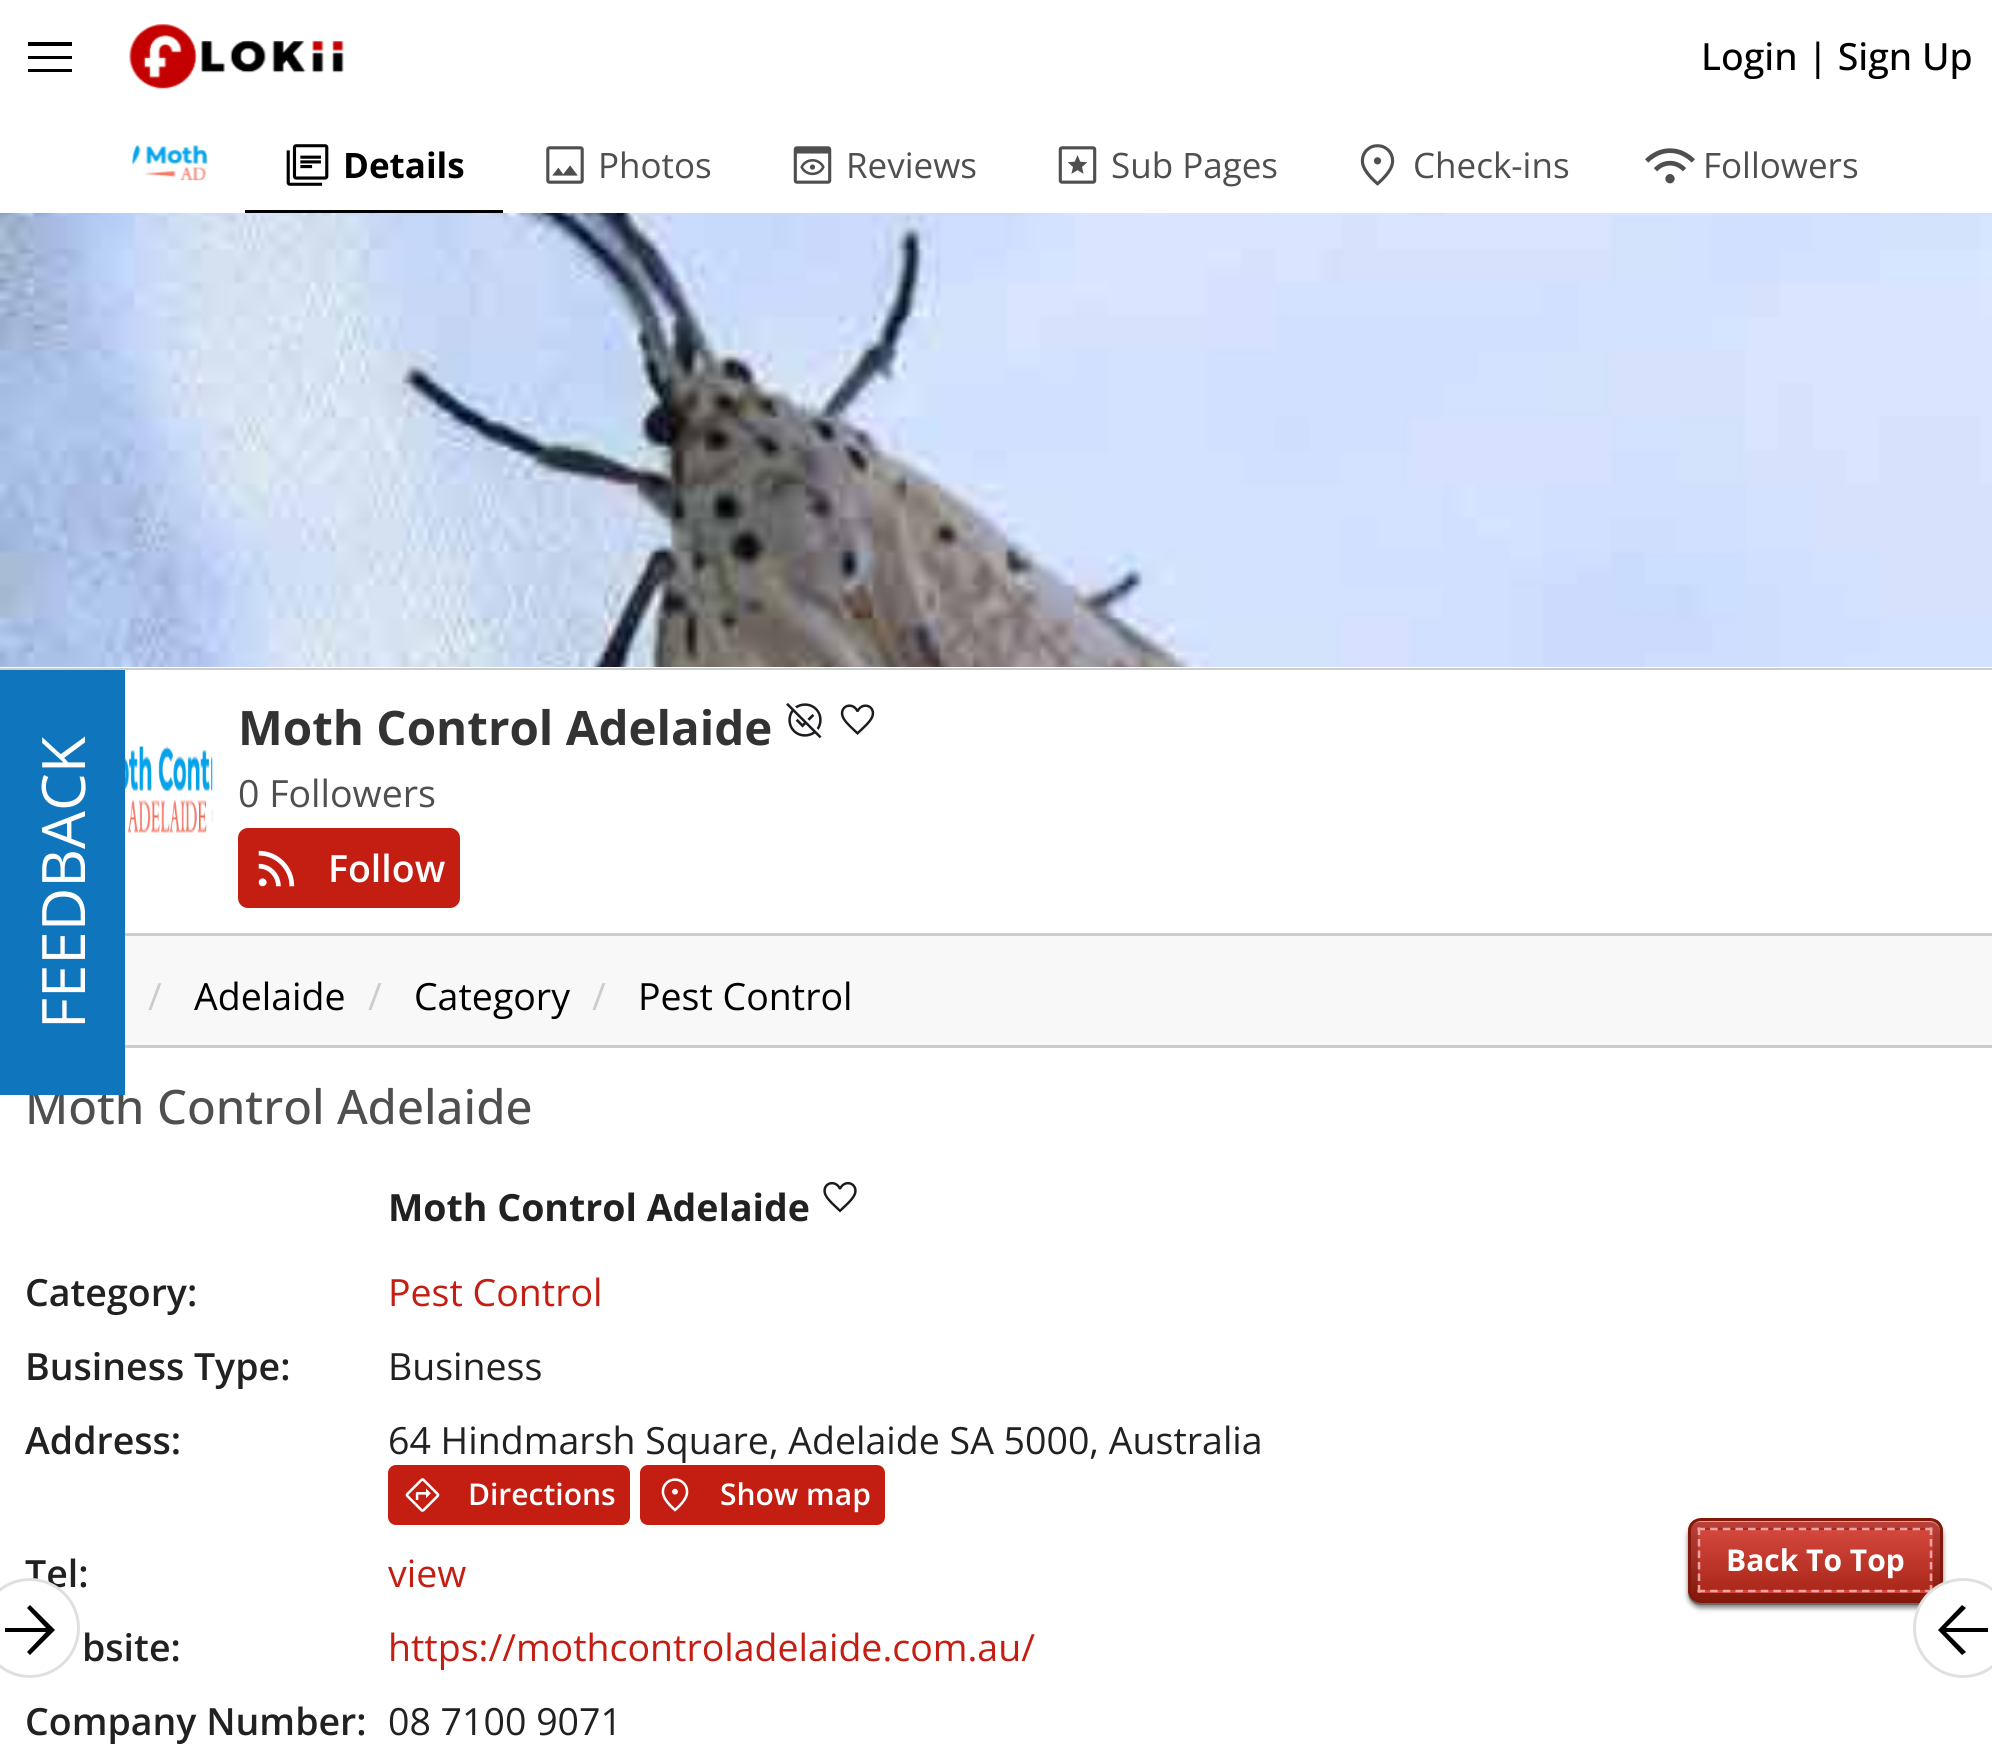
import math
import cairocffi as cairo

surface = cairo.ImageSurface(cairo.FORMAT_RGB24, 1992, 1764)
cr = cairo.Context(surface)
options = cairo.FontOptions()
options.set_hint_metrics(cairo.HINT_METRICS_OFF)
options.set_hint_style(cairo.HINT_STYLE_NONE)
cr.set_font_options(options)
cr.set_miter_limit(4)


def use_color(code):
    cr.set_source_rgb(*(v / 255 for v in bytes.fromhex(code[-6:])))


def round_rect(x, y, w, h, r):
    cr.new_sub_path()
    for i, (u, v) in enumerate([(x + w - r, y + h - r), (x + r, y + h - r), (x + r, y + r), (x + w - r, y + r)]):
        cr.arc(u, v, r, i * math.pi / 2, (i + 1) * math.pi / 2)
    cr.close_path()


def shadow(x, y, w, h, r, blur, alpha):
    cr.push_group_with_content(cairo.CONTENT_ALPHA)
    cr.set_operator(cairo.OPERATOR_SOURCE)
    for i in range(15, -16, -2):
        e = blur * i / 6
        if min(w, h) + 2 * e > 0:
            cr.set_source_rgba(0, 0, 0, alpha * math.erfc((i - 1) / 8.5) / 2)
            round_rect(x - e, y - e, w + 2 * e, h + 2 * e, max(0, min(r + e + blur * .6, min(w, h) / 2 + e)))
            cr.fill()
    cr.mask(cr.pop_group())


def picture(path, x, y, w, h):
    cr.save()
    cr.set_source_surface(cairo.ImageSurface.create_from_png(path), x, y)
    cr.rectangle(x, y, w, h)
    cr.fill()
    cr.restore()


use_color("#f8f8f8")
cr.paint()
use_color("#ffffff")
cr.rectangle(0, 0, 1992, 213)
cr.fill()
use_color("#000000")
cr.new_path()
cr.move_to(28, 72)
cr.line_to(28, 69)
cr.line_to(72, 69)
cr.line_to(72, 72)
cr.close_path()
cr.move_to(28, 59)
cr.line_to(28, 56)
cr.line_to(72, 56)
cr.line_to(72, 59)
cr.close_path()
cr.move_to(28, 46)
cr.line_to(28, 42)
cr.line_to(72, 42)
cr.line_to(72, 46)
cr.close_path()
cr.fill()
picture("img1.png", 129, 24, 215, 66)
cr.select_font_face("Open Sans Medium")
cr.set_font_size(37.5)
cr.move_to(1701, 70)
cr.show_text("Login | Sign Up")
use_color("#ffffff")
cr.rectangle(0, 667, 1992, 1)
cr.fill()
use_color("#cccccc")
cr.rectangle(0, 668, 1992, 2)
cr.fill()
cr.rectangle(125, 933, 1867, 3)
cr.fill()
use_color("#ffffff")
cr.rectangle(125, 670, 1867, 263)
cr.fill()
picture("img2.png", 132, 145, 76, 36)
use_color("#000000")
cr.rectangle(245, 210, 258, 3)
cr.fill()
picture("img3.png", 286, 144, 43, 42)
cr.select_font_face("Open Sans", cairo.FONT_SLANT_NORMAL, cairo.FONT_WEIGHT_BOLD)
cr.set_font_size(35)
cr.move_to(343, 178)
cr.show_text("Details")
picture("img4.png", 546, 146, 38, 38)
cr.select_font_face("Open Sans")
use_color("#4f4f4f")
cr.move_to(598, 178)
cr.show_text("Photos")
picture("img5.png", 793, 146, 39, 38)
cr.move_to(846, 178)
cr.show_text("Reviews")
picture("img6.png", 1058, 146, 39, 38)
cr.move_to(1111, 178)
cr.show_text("Sub Pages")
picture("img7.png", 1360, 144, 35, 42)
cr.move_to(1413, 178)
cr.show_text("Check-ins")
picture("img8.png", 1645, 148, 50, 36)
cr.move_to(1703, 178)
cr.show_text("Followers")
picture("img9.png", 125, 746, 88, 87)
cr.select_font_face("Open Sans", cairo.FONT_SLANT_NORMAL, cairo.FONT_WEIGHT_BOLD)
cr.set_font_size(47.5)
use_color("#333333")
cr.move_to(238, 745)
cr.show_text("Moth Control Adelaide")
picture("img10.png", 786, 703, 36, 36)
picture("img11.png", 840, 704, 35, 31)
cr.select_font_face("Open Sans")
cr.set_font_size(37.5)
use_color("#4f4f4f")
cr.move_to(238, 807)
cr.show_text("0 Followers")
use_color("#c41e13")
round_rect(239.5, 829.5, 219, 77, 8.5)
cr.fill_preserve()
cr.set_line_width(3)
cr.stroke()
picture("img12.png", 258, 850, 37, 37)
cr.select_font_face("Open Sans SemiBold")
use_color("#ffffff")
cr.move_to(328, 882)
cr.show_text("Follow")
picture("img13.png", 0, 213, 1992, 454)
cr.select_font_face("Open Sans")
use_color("#cccccc")
cr.move_to(148, 1010)
cr.show_text("/")
use_color("#000000")
cr.move_to(194, 1010)
cr.show_text("Adelaide")
use_color("#cccccc")
cr.move_to(368, 1010)
cr.show_text("/")
use_color("#000000")
cr.move_to(414, 1010)
cr.show_text("Category")
use_color("#cccccc")
cr.move_to(592, 1010)
cr.show_text("/")
use_color("#000000")
cr.move_to(638, 1010)
cr.show_text("Pest Control")
use_color("#cccccc")
cr.rectangle(125, 1045, 1867, 3)
cr.fill()
use_color("#ffffff")
cr.rectangle(0, 1048, 1992, 716)
cr.fill()
cr.select_font_face("Open Sans Medium")
cr.set_font_size(47.5)
use_color("#4f4f4f")
cr.move_to(25, 1124)
cr.show_text("Moth Control Adelaide")
cr.select_font_face("Open Sans", cairo.FONT_SLANT_NORMAL, cairo.FONT_WEIGHT_BOLD)
cr.set_font_size(37.5)
use_color("#212121")
cr.move_to(388, 1221)
cr.show_text("Moth Control Adelaide")
picture("img14.png", 823, 1181, 34, 32)
cr.select_font_face("Open Sans SemiBold")
cr.move_to(25, 1306)
cr.show_text("Category:")
cr.select_font_face("Open Sans")
use_color("#c41e13")
cr.move_to(388, 1306)
cr.show_text("Pest Control")
cr.select_font_face("Open Sans SemiBold")
use_color("#212121")
cr.move_to(25, 1380)
cr.show_text("Business Type:")
cr.select_font_face("Open Sans")
cr.move_to(388, 1380)
cr.show_text("Business")
cr.select_font_face("Open Sans SemiBold")
cr.move_to(25, 1454)
cr.show_text("Address:")
cr.select_font_face("Open Sans")
cr.move_to(388, 1454)
cr.show_text("64 Hindmarsh Square, Adelaide SA 5000, Australia")
use_color("#c41e13")
round_rect(389.5, 1466.5, 239, 57, 6.5)
cr.fill_preserve()
cr.stroke()
picture("img15.png", 405, 1478, 35, 34)
cr.select_font_face("Open Sans SemiBold")
cr.set_font_size(30)
use_color("#ffffff")
cr.move_to(468, 1505)
cr.show_text("Directions")
use_color("#c41e13")
round_rect(641.5, 1466.5, 242, 57, 6.5)
cr.fill_preserve()
cr.stroke()
picture("img16.png", 661, 1478, 28, 34)
use_color("#ffffff")
cr.move_to(720, 1505)
cr.show_text("Show map")
cr.set_font_size(37.5)
use_color("#212121")
cr.move_to(25, 1587)
cr.show_text("Tel:")
cr.select_font_face("Open Sans")
use_color("#c41e13")
cr.move_to(388, 1587)
cr.show_text("view")
cr.select_font_face("Open Sans SemiBold")
use_color("#212121")
cr.move_to(82, 1661)
cr.show_text("bsite:")
cr.select_font_face("Open Sans")
use_color("#c41e13")
cr.move_to(388, 1661)
cr.show_text("https://mothcontroladelaide.com.au/")
cr.select_font_face("Open Sans SemiBold")
use_color("#212121")
cr.move_to(25, 1735)
cr.show_text("Company Number:")
cr.select_font_face("Open Sans")
cr.move_to(388, 1735)
cr.show_text("08 7100 9071")
use_color("#0f75bd")
cr.rectangle(0, 670, 125, 425)
cr.fill()
cr.set_font_size(60)
use_color("#ffffff")
cr.save()
cr.translate(85, 1029)
cr.rotate(-90 * math.pi / 180)
cr.move_to(0, 0)
cr.show_text("FEEDBACK")
cr.restore()
use_color("#020202")
shadow(1688, 1523, 255, 85, 13, 2.5, 0.5)
cr.set_source_rgba(0.008, 0.008, 0.008, 0.7)
cr.new_path()
cr.move_to(1688, 1594)
cr.curve_to(1689, 1600, 1694, 1605, 1701, 1605)
cr.line_to(1930, 1605)
cr.curve_to(1937, 1605, 1943, 1599, 1943, 1592)
cr.line_to(1943, 1533)
cr.line_to(1942, 1529)
cr.line_to(1942, 1590)
cr.curve_to(1942, 1597, 1937, 1602, 1930, 1602)
cr.line_to(1700, 1602)
cr.curve_to(1694, 1602, 1690, 1599, 1688, 1594)
cr.close_path()
cr.fill()
cr.set_source_rgba(1, 1, 1, 0.3)
cr.new_path()
cr.move_to(1688, 1594)
cr.curve_to(1689, 1600, 1694, 1605, 1701, 1605)
cr.line_to(1930, 1605)
cr.curve_to(1937, 1605, 1943, 1599, 1943, 1592)
cr.line_to(1943, 1533)
cr.line_to(1942, 1529)
cr.line_to(1942, 1590)
cr.curve_to(1942, 1597, 1937, 1602, 1930, 1602)
cr.line_to(1700, 1602)
cr.curve_to(1694, 1602, 1690, 1599, 1688, 1594)
cr.close_path()
cr.fill()
cr.save()
round_rect(1688, 1518, 255, 85, 13)
cr.clip()
gradient = cairo.LinearGradient(1815, 1520, 1815, 1600)
gradient.add_color_stop_rgba(0, 0.733, 0.259, 0.235, 1)
gradient.add_color_stop_rgba(1, 0.518, 0.094, 0.039, 1)
cr.set_source(gradient)
cr.rectangle(1688, 1520, 255, 80)
cr.fill()
cr.restore()
cr.set_source_rgba(1, 1, 1, 0.5)
cr.new_path()
cr.move_to(1700, 1522)
cr.line_to(1930, 1522)
cr.curve_to(1936, 1522, 1940, 1527, 1940, 1532)
cr.line_to(1940, 1530)
cr.curve_to(1940, 1524, 1936, 1520, 1930, 1520)
cr.line_to(1700, 1520)
cr.curve_to(1694, 1520, 1690, 1524, 1690, 1530)
cr.line_to(1690, 1532)
cr.curve_to(1690, 1527, 1694, 1522, 1700, 1522)
cr.close_path()
cr.fill()
round_rect(1689.5, 1519.5, 252, 82, 11.5)
use_color("#84180a")
cr.stroke()
gradient = cairo.LinearGradient(1815, 1470, 1815, 1530)
gradient.add_color_stop_rgba(0, 0.831, 0.278, 0.239, 1)
gradient.add_color_stop_rgba(1, 0.671, 0.157, 0.102, 1)
cr.set_source(gradient)
cr.rectangle(1698, 1528, 235, 2)
cr.fill()
gradient = cairo.LinearGradient(1815, 1530, 1815, 1590)
gradient.add_color_stop_rgba(0, 0.831, 0.278, 0.239, 1)
gradient.add_color_stop_rgba(1, 0.671, 0.157, 0.102, 1)
cr.set_source(gradient)
cr.rectangle(1698, 1530, 235, 60)
cr.fill()
gradient = cairo.LinearGradient(1815, 1590, 1815, 1650)
gradient.add_color_stop_rgba(0, 0.831, 0.278, 0.239, 1)
gradient.add_color_stop_rgba(1, 0.671, 0.157, 0.102, 1)
cr.set_source(gradient)
cr.rectangle(1698, 1590, 235, 3)
cr.fill()
cr.new_path()
cr.move_to(1697.5, 1529)
cr.line_to(1932.5, 1529)
use_color("#eba2a4")
cr.set_line_width(2.5)
cr.set_dash([7.5, 5.15])
cr.stroke()
cr.new_path()
cr.move_to(1931, 1527.5)
cr.line_to(1931, 1592.5)
cr.set_dash([7.5, 4])
cr.stroke()
cr.new_path()
cr.move_to(1697.5, 1591)
cr.line_to(1932.5, 1591)
cr.set_dash([7.5, 5.15])
cr.stroke()
cr.new_path()
cr.move_to(1699, 1527.5)
cr.line_to(1699, 1592.5)
cr.set_dash([7.5, 4])
cr.stroke()
cr.select_font_face("Open Sans", cairo.FONT_SLANT_NORMAL, cairo.FONT_WEIGHT_BOLD)
cr.set_font_size(30)
use_color("#ffffff")
cr.move_to(1726, 1571)
cr.show_text("Back To Top")
cr.new_path()
cr.arc(30, 1628, 48.5, 0, 2 * math.pi)
cr.fill_preserve()
use_color("#e0e0e0")
cr.set_line_width(3)
cr.set_dash([])
cr.stroke()
use_color("#000000")
cr.new_path()
cr.move_to(46, 1632)
cr.line_to(5, 1632)
cr.line_to(5, 1628)
cr.line_to(46, 1628)
cr.line_to(27, 1608)
cr.line_to(30, 1605)
cr.line_to(55, 1630)
cr.line_to(30, 1655)
cr.line_to(27, 1652)
cr.close_path()
cr.fill()
use_color("#ffffff")
cr.arc(1963, 1628, 48.5, 0, 2 * math.pi)
cr.fill_preserve()
use_color("#e0e0e0")
cr.stroke()
use_color("#000000")
cr.new_path()
cr.move_to(1946, 1632)
cr.line_to(1966, 1652)
cr.line_to(1962, 1655)
cr.line_to(1938, 1630)
cr.line_to(1962, 1605)
cr.line_to(1966, 1608)
cr.line_to(1946, 1628)
cr.line_to(1988, 1628)
cr.line_to(1988, 1632)
cr.close_path()
cr.fill()
surface.write_to_png("result.png")
